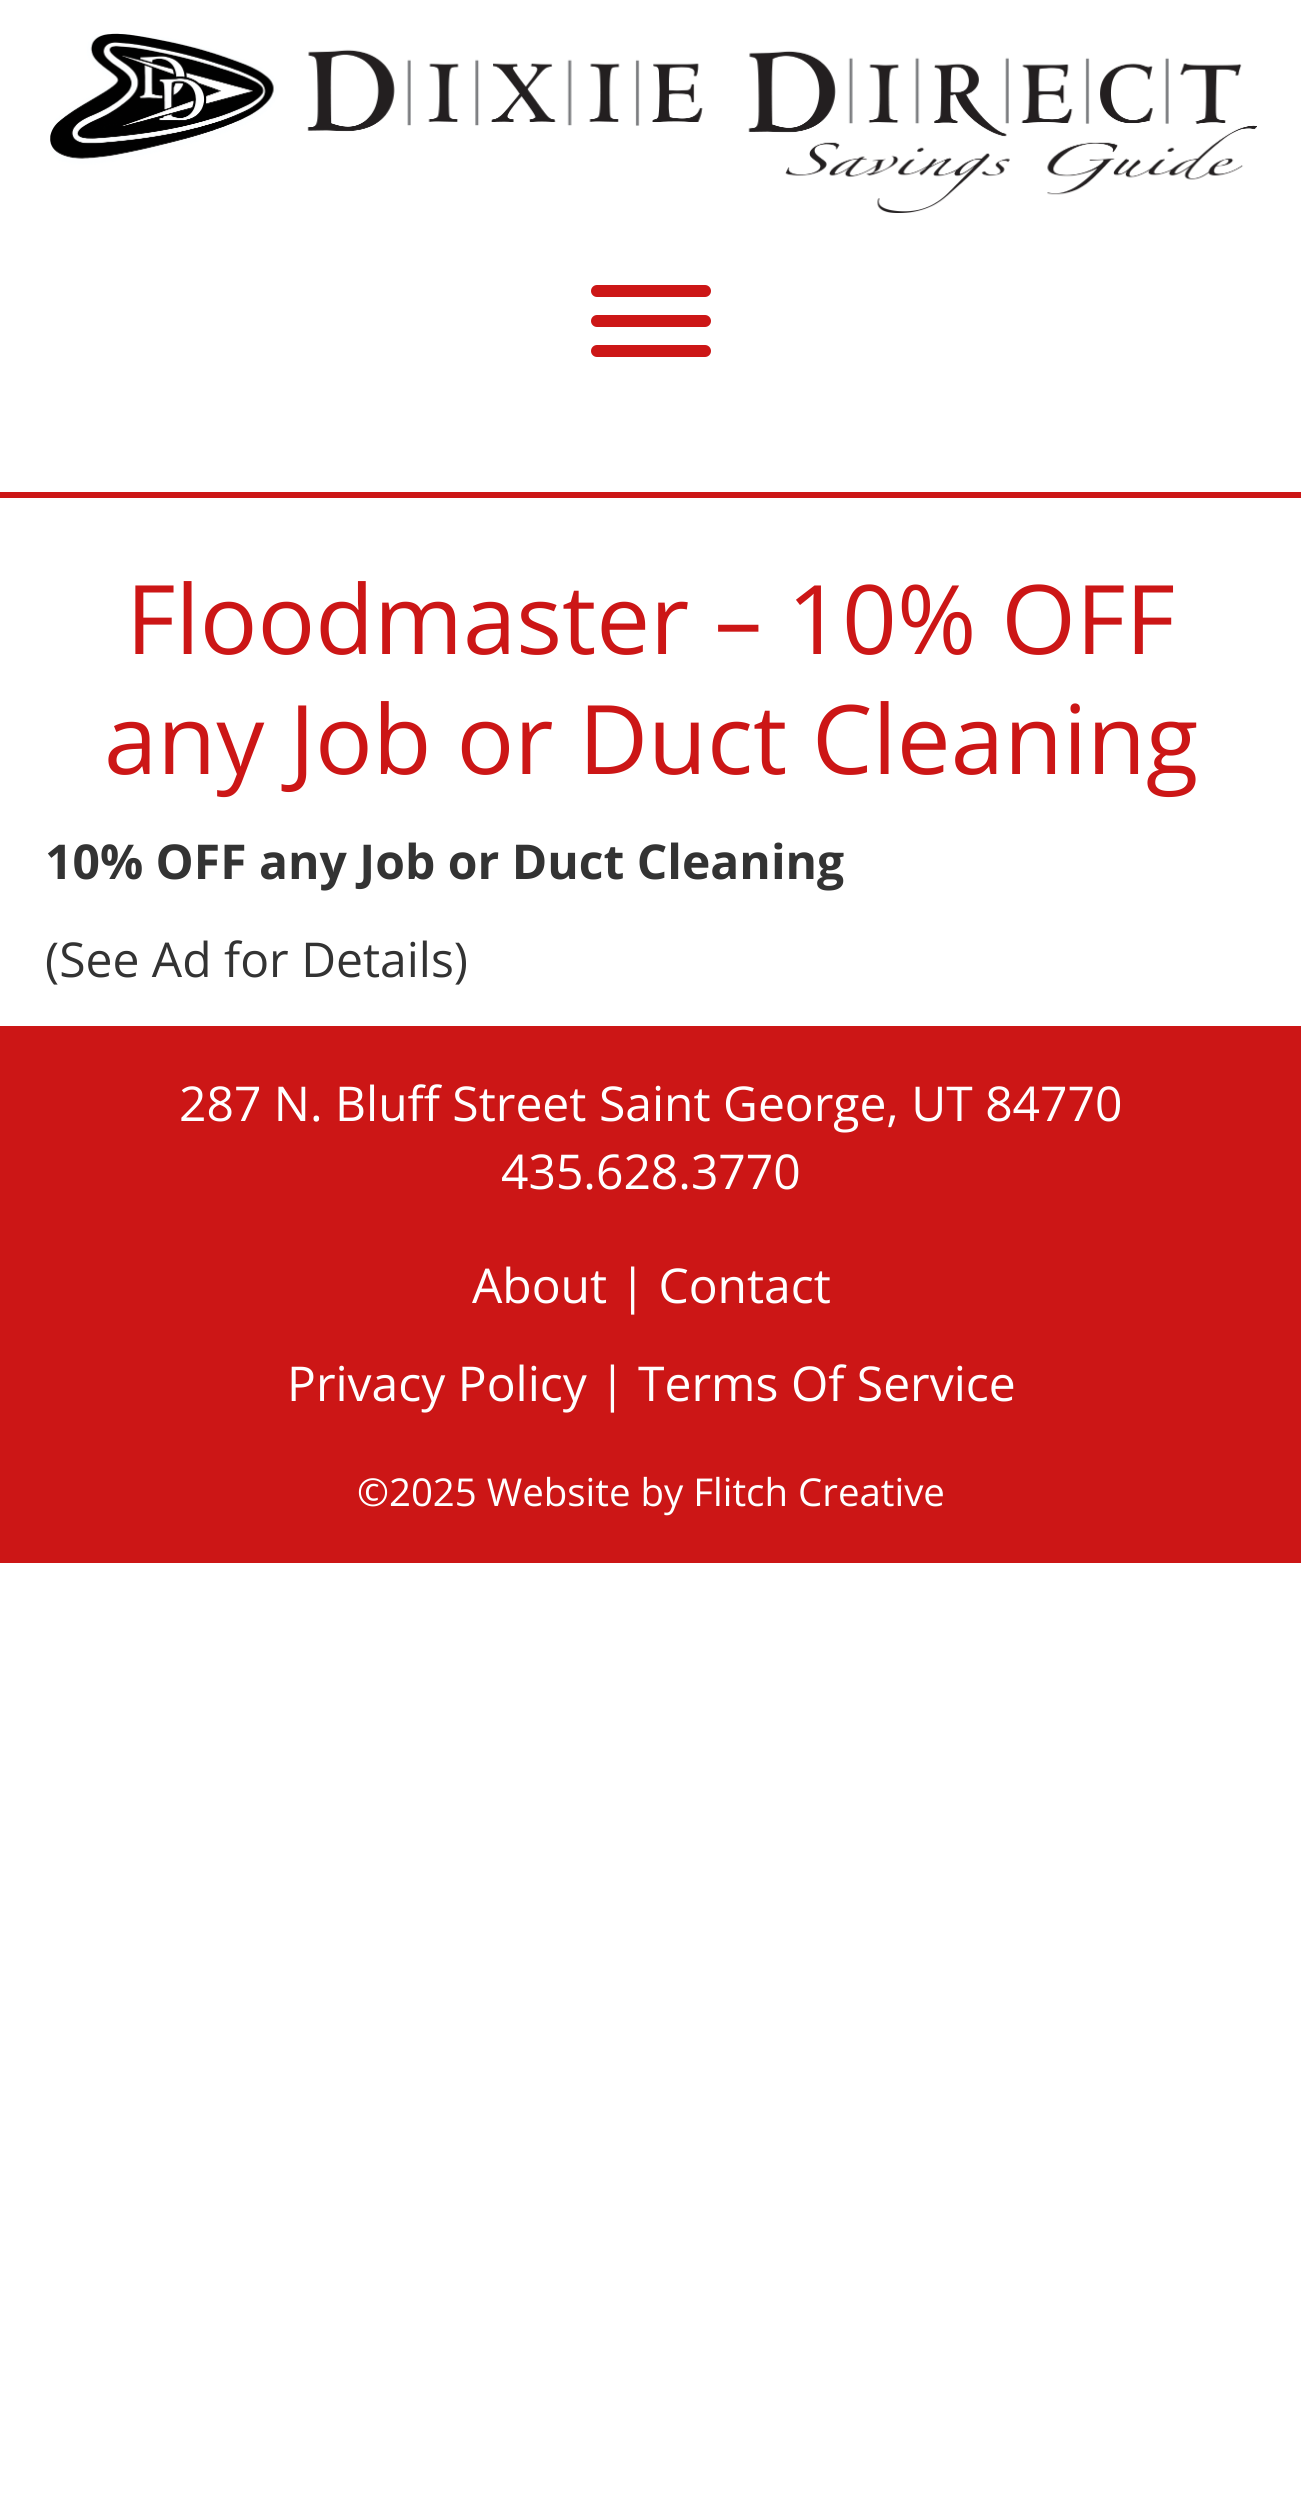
import math
import cairocffi as cairo

surface = cairo.ImageSurface(cairo.FORMAT_RGB24, 1301, 2517)
cr = cairo.Context(surface)
options = cairo.FontOptions()
options.set_hint_metrics(cairo.HINT_METRICS_OFF)
options.set_hint_style(cairo.HINT_STYLE_NONE)
cr.set_font_options(options)
cr.set_miter_limit(4)


def use_color(code):
    cr.set_source_rgb(*(v / 255 for v in bytes.fromhex(code[-6:])))


def round_rect(x, y, w, h, r):
    cr.new_sub_path()
    for i, (u, v) in enumerate([(x + w - r, y + h - r), (x + r, y + h - r), (x + r, y + r), (x + w - r, y + r)]):
        cr.arc(u, v, r, i * math.pi / 2, (i + 1) * math.pi / 2)
    cr.close_path()


def picture(path, x, y, w, h):
    cr.save()
    cr.set_source_surface(cairo.ImageSurface.create_from_png(path), x, y)
    cr.rectangle(x, y, w, h)
    cr.fill()
    cr.restore()


use_color("#ffffff")
cr.paint()
use_color("#cc1616")
cr.rectangle(0, 492, 1301, 6)
cr.fill()
picture("img1.png", 50, 33, 1207, 180)
round_rect(591, 315, 120, 12, 6)
cr.fill()
round_rect(591, 285, 120, 12, 6)
cr.fill()
round_rect(591, 345, 120, 12, 6)
cr.fill()
cr.select_font_face("Open Sans")
cr.set_font_size(96)
cr.move_to(126, 654)
cr.show_text("Floodmaster – 10% OFF")
cr.move_to(104, 774)
cr.show_text("any Job or Duct Cleaning")
cr.select_font_face("Open Sans", cairo.FONT_SLANT_NORMAL, cairo.FONT_WEIGHT_BOLD)
cr.set_font_size(48)
use_color("#333333")
cr.move_to(45, 879)
cr.show_text("10% OFF any Job or Duct Cleaning")
cr.select_font_face("Open Sans")
cr.move_to(45, 977)
cr.show_text("(See Ad for Details)")
use_color("#cc1616")
cr.rectangle(0, 1026, 1301, 537)
cr.fill()
use_color("#ffffff")
cr.move_to(179, 1121)
cr.show_text("287 N. Bluff Street Saint George, UT 84770")
cr.move_to(501, 1189)
cr.show_text("435.628.3770")
cr.move_to(472, 1303)
cr.show_text("About | Contact")
cr.move_to(287, 1401)
cr.show_text("Privacy Policy | Terms Of Service")
cr.set_font_size(38.4)
cr.move_to(357, 1506)
cr.show_text("©2025 Website by Flitch Creative")
surface.write_to_png("result.png")
